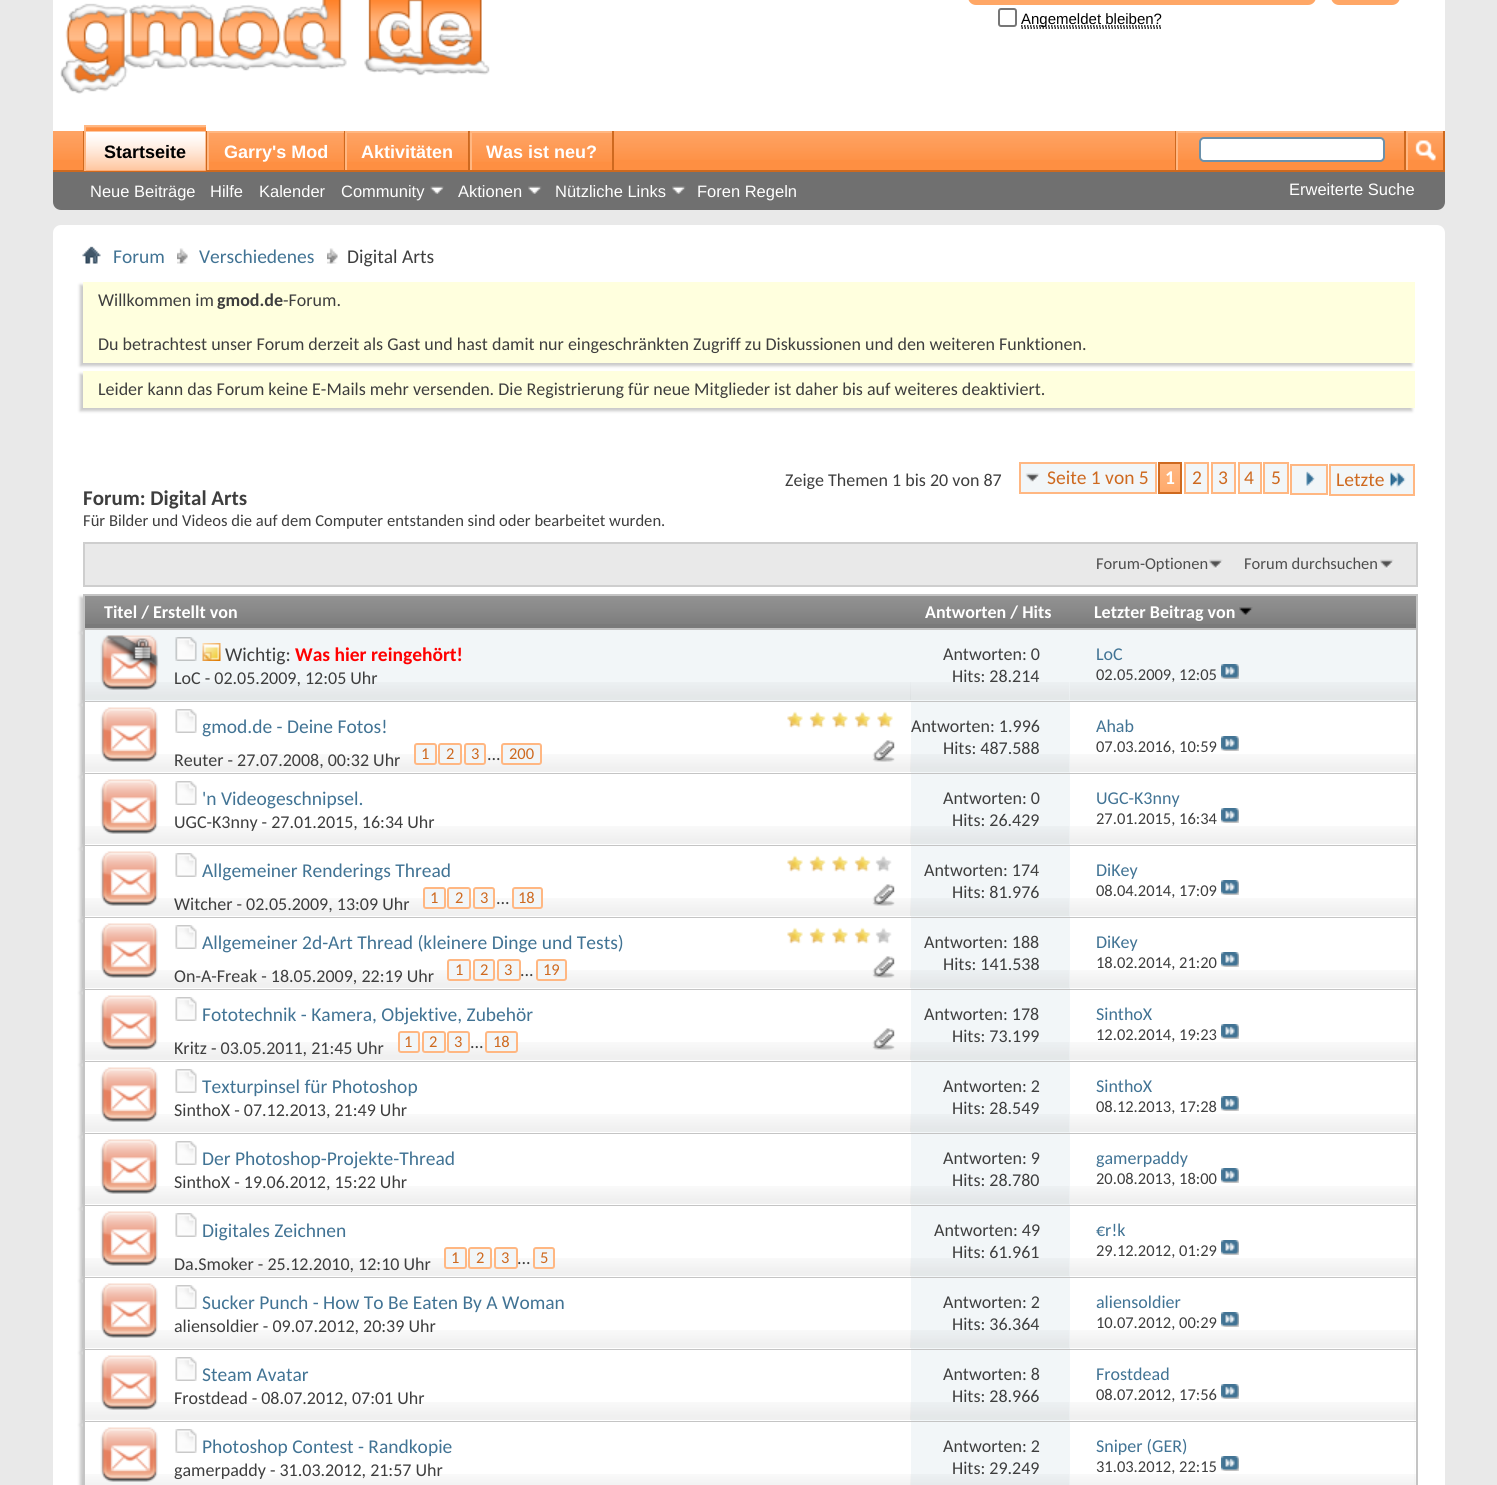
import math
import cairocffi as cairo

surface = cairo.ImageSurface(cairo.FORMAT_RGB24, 1497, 1485)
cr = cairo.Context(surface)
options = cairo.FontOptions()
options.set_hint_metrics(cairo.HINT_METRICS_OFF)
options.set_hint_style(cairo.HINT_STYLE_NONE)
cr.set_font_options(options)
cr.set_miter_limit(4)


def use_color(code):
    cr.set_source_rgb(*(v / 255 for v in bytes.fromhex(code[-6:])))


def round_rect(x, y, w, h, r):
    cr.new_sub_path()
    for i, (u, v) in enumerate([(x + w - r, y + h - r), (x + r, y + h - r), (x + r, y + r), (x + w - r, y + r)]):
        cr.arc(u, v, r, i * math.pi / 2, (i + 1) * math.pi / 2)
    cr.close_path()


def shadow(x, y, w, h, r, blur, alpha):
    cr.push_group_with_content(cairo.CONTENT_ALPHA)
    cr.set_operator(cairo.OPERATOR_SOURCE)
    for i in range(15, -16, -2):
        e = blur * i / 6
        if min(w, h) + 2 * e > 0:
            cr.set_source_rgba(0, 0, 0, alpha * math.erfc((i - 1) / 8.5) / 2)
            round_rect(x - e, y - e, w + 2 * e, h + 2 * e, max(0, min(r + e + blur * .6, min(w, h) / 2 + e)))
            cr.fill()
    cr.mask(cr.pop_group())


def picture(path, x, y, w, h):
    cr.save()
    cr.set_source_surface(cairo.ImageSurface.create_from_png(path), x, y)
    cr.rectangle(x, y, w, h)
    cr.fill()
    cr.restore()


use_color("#e9e9e9")
cr.paint()
use_color("#ffffff")
cr.new_path()
cr.move_to(53, -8)
cr.line_to(1445, -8)
cr.line_to(1445, 202)
cr.curve_to(1445, 206.5, 1441.5, 210, 1437, 210)
cr.line_to(61, 210)
cr.curve_to(56.5, 210, 53, 206.5, 53, 202)
cr.close_path()
cr.fill()
picture("img1.png", 60, 0, 430, 94)
use_color("#ffa766")
cr.new_path()
cr.move_to(1331, -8)
cr.line_to(1400, -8)
cr.line_to(1400, -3)
cr.curve_to(1400, 1.5, 1396.5, 5, 1392, 5)
cr.line_to(1339, 5)
cr.curve_to(1334.5, 5, 1331, 1.5, 1331, -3)
cr.close_path()
cr.fill()
cr.new_path()
cr.move_to(968, -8)
cr.line_to(1316, -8)
cr.line_to(1316, -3)
cr.curve_to(1316, 1.5, 1312.5, 5, 1308, 5)
cr.line_to(976, 5)
cr.curve_to(971.5, 5, 968, 1.5, 968, -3)
cr.close_path()
cr.fill()
round_rect(999, 9, 17, 17, 2)
use_color("#767676")
cr.stroke()
cr.new_path()
cr.move_to(1021.5, 28)
cr.line_to(1162.5, 28)
use_color("#000000")
cr.set_line_width(1.5)
cr.set_dash([1.5, 1.5])
cr.stroke()
cr.new_path()
cr.move_to(1021, 26)
cr.line_to(1162, 26)
cr.stroke()
cr.select_font_face("Liberation Sans")
cr.set_font_size(15)
cr.move_to(1021, 24)
cr.show_text("Angemeldet bleiben?")
use_color("#707070")
cr.new_path()
cr.move_to(53, 131)
cr.line_to(1445, 131)
cr.line_to(1445, 202)
cr.curve_to(1445, 206.5, 1441.5, 210, 1437, 210)
cr.line_to(61, 210)
cr.curve_to(56.5, 210, 53, 206.5, 53, 202)
cr.close_path()
cr.fill()
use_color("#fe8f42")
cr.rectangle(53, 131, 1390, 39)
cr.fill()
picture("img2.png", 53, 131, 1390, 29)
use_color("#ce691f")
cr.rectangle(206, 131, 1, 39)
cr.fill()
cr.rectangle(83, 131, 1, 39)
cr.fill()
cr.rectangle(344, 131, 1, 40)
cr.fill()
use_color("#ffb782")
cr.rectangle(207, 131, 137, 2)
cr.fill()
cr.rectangle(207, 131, 2, 40)
cr.fill()
use_color("#ce691f")
cr.rectangle(468, 131, 2, 40)
cr.fill()
use_color("#ffb782")
cr.rectangle(345, 131, 123, 2)
cr.fill()
cr.rectangle(345, 131, 2, 40)
cr.fill()
use_color("#ce691f")
cr.rectangle(612, 131, 2, 40)
cr.fill()
use_color("#fe8f42")
cr.rectangle(472, 133, 140, 27)
cr.fill()
picture("img6.png", 469, 131, 143, 31)
use_color("#ffb782")
cr.rectangle(470, 131, 142, 2)
cr.fill()
cr.rectangle(470, 131, 2, 40)
cr.fill()
use_color("#ce691f")
cr.rectangle(53, 170, 1392, 2)
cr.fill()
use_color("#fe8f42")
cr.rectangle(86, 127, 120, 44)
cr.fill()
picture("img3.png", 86, 127, 120, 44)
use_color("#ffb782")
cr.rectangle(84, 125, 122, 2)
cr.fill()
cr.rectangle(84, 125, 2, 46)
cr.fill()
cr.select_font_face("Liberation Sans", cairo.FONT_SLANT_NORMAL, cairo.FONT_WEIGHT_BOLD)
cr.set_font_size(18)
use_color("#000000")
cr.move_to(104, 158)
cr.show_text("Startseite")
use_color("#fe8f42")
cr.rectangle(209, 133, 135, 27)
cr.fill()
picture("img4.png", 209, 133, 135, 29)
use_color("#ffffff")
cr.move_to(224, 158)
cr.show_text("Garry's Mod")
use_color("#fe8f42")
cr.rectangle(347, 133, 121, 27)
cr.fill()
picture("img5.png", 347, 133, 121, 29)
use_color("#ffffff")
cr.move_to(361, 158)
cr.show_text("Aktivitäten")
cr.move_to(486, 158)
cr.show_text("Was ist neu?")
cr.select_font_face("Liberation Sans")
cr.set_font_size(16.5)
cr.move_to(90, 197)
cr.show_text("Neue Beiträge")
cr.move_to(210, 197)
cr.show_text("Hilfe")
cr.move_to(259, 197)
cr.show_text("Kalender")
cr.move_to(341, 197)
cr.show_text("Community")
picture("img7.png", 430, 186, 14, 8)
cr.move_to(458, 197)
cr.show_text("Aktionen")
picture("img8.png", 528, 186, 14, 8)
cr.move_to(555, 197)
cr.show_text("Nützliche Links")
picture("img9.png", 672, 186, 14, 8)
cr.move_to(697, 197)
cr.show_text("Foren Regeln")
use_color("#ce691f")
cr.rectangle(1175, 131, 1, 39)
cr.fill()
use_color("#ffb782")
cr.rectangle(1176, 131, 228, 2)
cr.fill()
cr.rectangle(1176, 131, 2, 39)
cr.fill()
use_color("#ffffff")
round_rect(1200, 138, 184, 23, 4)
cr.fill_preserve()
use_color("#6b91ab")
cr.set_line_width(2)
cr.set_dash([])
cr.stroke()
use_color("#ce691f")
cr.rectangle(1443, 131, 2, 39)
cr.fill()
cr.rectangle(1404, 131, 2, 39)
cr.fill()
use_color("#ffb782")
cr.rectangle(1406, 131, 37, 2)
cr.fill()
cr.rectangle(1406, 131, 2, 39)
cr.fill()
picture("img10.png", 1415, 140, 21, 22)
use_color("#ffffff")
cr.move_to(1289, 195)
cr.show_text("Erweiterte Suche")
round_rect(53, 225, 1392, 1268, 8)
cr.fill()
picture("img11.png", 82, 246, 19, 18)
picture("img12.png", 177, 248, 11, 16)
cr.select_font_face("Carlito")
cr.set_font_size(19.5)
use_color("#417394")
cr.move_to(113, 263)
cr.show_text("Forum")
picture("img13.png", 327, 248, 11, 16)
cr.move_to(199, 263)
cr.show_text("Verschiedenes")
use_color("#3e3e3e")
cr.move_to(347, 263)
cr.show_text("Digital Arts")
use_color("#c8c8c8")
shadow(80, 285, 1332, 81, 0, 1.5, 1)
use_color("#ffffde")
cr.rectangle(83, 282, 1332, 81)
cr.fill()
cr.set_font_size(18)
use_color("#3e3e3e")
cr.move_to(98, 306)
cr.show_text("Willkommen im")
cr.select_font_face("Carlito", cairo.FONT_SLANT_NORMAL, cairo.FONT_WEIGHT_BOLD)
cr.move_to(217, 306)
cr.show_text("gmod.de")
cr.select_font_face("Carlito")
cr.move_to(283, 306)
cr.show_text("-Forum.")
cr.move_to(98, 350)
cr.show_text("Du betrachtest unser Forum derzeit als Gast und hast damit nur eingeschränkten Zugriff zu Diskussionen und den weiteren Funktionen.")
use_color("#c8c8c8")
shadow(80, 374, 1332, 37, 0, 1.5, 1)
use_color("#ffffde")
cr.rectangle(83, 371, 1332, 37)
cr.fill()
use_color("#3e3e3e")
cr.move_to(98, 395)
cr.show_text("Leider kann das Forum keine E-Mails mehr versenden. Die Registrierung für neue Mitglieder ist daher bis auf weiteres deaktiviert.")
cr.move_to(785, 486)
cr.show_text("Zeige Themen 1 bis 20 von 87")
use_color("#f2f6f8")
cr.rectangle(1021, 464, 134, 28)
cr.fill()
picture("img14.png", 1025, 473, 15, 9)
cr.rectangle(1020, 463, 136, 30)
use_color("#ffb782")
cr.stroke()
cr.set_font_size(19.5)
use_color("#ce691f")
cr.move_to(1047, 484)
cr.show_text("Seite 1 von 5")
use_color("#ffa766")
cr.rectangle(1160, 464, 20, 28)
cr.fill()
picture("img15.png", 1160, 464, 20, 28)
cr.rectangle(1159, 463, 22, 30)
use_color("#ce691f")
cr.stroke()
cr.select_font_face("Carlito", cairo.FONT_SLANT_NORMAL, cairo.FONT_WEIGHT_BOLD)
use_color("#ffffff")
cr.move_to(1165, 484)
cr.show_text("1")
use_color("#f2f6f8")
cr.rectangle(1185, 463, 23, 30)
cr.fill_preserve()
use_color("#ffb782")
cr.stroke()
cr.select_font_face("Carlito")
use_color("#ce691f")
cr.move_to(1192, 484)
cr.show_text("2")
use_color("#f2f6f8")
cr.rectangle(1212, 463, 23, 30)
cr.fill_preserve()
use_color("#ffb782")
cr.stroke()
use_color("#ce691f")
cr.move_to(1218, 484)
cr.show_text("3")
use_color("#f2f6f8")
cr.rectangle(1239, 463, 22, 30)
cr.fill_preserve()
use_color("#ffb782")
cr.stroke()
use_color("#ce691f")
cr.move_to(1244, 484)
cr.show_text("4")
use_color("#f2f6f8")
cr.rectangle(1264, 463, 24, 30)
cr.fill_preserve()
use_color("#ffb782")
cr.stroke()
use_color("#ce691f")
cr.move_to(1271, 484)
cr.show_text("5")
use_color("#f2f6f8")
cr.rectangle(1291, 465, 36, 29)
cr.fill_preserve()
use_color("#ffb782")
cr.stroke()
picture("img16.png", 1306, 471, 9, 15)
use_color("#f2f6f8")
cr.rectangle(1331, 466, 82, 28)
cr.fill()
use_color("#ce691f")
cr.move_to(1336, 486)
cr.show_text("Letzte")
use_color("#ffb782")
cr.rectangle(1329, 464, 86, 2)
cr.fill()
cr.rectangle(1329, 494, 56, 2)
cr.fill()
cr.rectangle(1329, 464, 2, 31)
cr.fill()
cr.rectangle(1413, 464, 2, 31)
cr.fill()
cr.rectangle(1385, 494, 30, 2)
cr.fill()
picture("img17.png", 1390, 472, 16, 16)
cr.select_font_face("Carlito", cairo.FONT_SLANT_NORMAL, cairo.FONT_WEIGHT_BOLD)
cr.set_font_size(21)
use_color("#3e3e3e")
cr.move_to(83, 505)
cr.show_text("Forum: Digital Arts")
cr.select_font_face("Carlito")
cr.set_font_size(16.6)
cr.move_to(83, 526)
cr.show_text("Für Bilder und Videos die auf dem Computer entstanden sind oder bearbeitet wurden.")
use_color("#e9e9e9")
cr.rectangle(84, 543, 1333, 43)
cr.fill_preserve()
use_color("#cecece")
cr.stroke()
picture("img18.png", 1209, 559, 14, 10)
cr.set_font_size(16.5)
use_color("#4e4e4e")
cr.move_to(1096, 569)
cr.show_text("Forum-Optionen")
picture("img19.png", 1380, 559, 14, 10)
cr.move_to(1244, 569)
cr.show_text("Forum durchsuchen")
use_color("#c8c8c8")
shadow(80, 597, 1335, 36, 0, 1.5, 1)
use_color("#7a7a7a")
cr.rectangle(85, 596, 1331, 32)
cr.fill()
picture("img20.png", 85, 596, 1331, 28)
cr.rectangle(84, 595, 1333, 34)
use_color("#c4c4c4")
cr.stroke()
cr.select_font_face("Carlito", cairo.FONT_SLANT_NORMAL, cairo.FONT_WEIGHT_BOLD)
cr.set_font_size(18)
use_color("#ffffff")
cr.move_to(104, 618)
cr.show_text("Titel / Erstellt von")
cr.move_to(925, 618)
cr.show_text("Antworten / Hits")
cr.move_to(1094, 618)
cr.show_text("Letzter Beitrag von")
picture("img21.png", 1239, 607, 14, 8)
use_color("#c8c8c8")
shadow(80, 633, 1332, 72, 0, 1.5, 1)
use_color("#f2f6f8")
cr.rectangle(85, 630, 1331, 71)
cr.fill()
picture("img22.png", 82, 682, 1334, 18)
use_color("#c4c4c4")
cr.rectangle(1416, 630, 2, 72)
cr.fill()
cr.rectangle(83, 701, 1335, 1)
cr.fill()
cr.rectangle(83, 630, 2, 72)
cr.fill()
picture("img23.png", 100, 635, 59, 55)
picture("img24.png", 175, 637, 22, 24)
picture("img25.png", 202, 643, 19, 18)
cr.select_font_face("Carlito")
cr.set_font_size(19.5)
use_color("#3e3e3e")
cr.move_to(225, 661)
cr.show_text("Wichtig:")
cr.select_font_face("Carlito", cairo.FONT_SLANT_NORMAL, cairo.FONT_WEIGHT_BOLD)
use_color("#ff0000")
cr.move_to(295, 661)
cr.show_text("Was hier reingehört!")
cr.select_font_face("Carlito")
cr.set_font_size(18)
use_color("#3e3e3e")
cr.move_to(174, 684)
cr.show_text("LoC - 02.05.2009, 12:05 Uhr")
use_color("#f2f6f8")
cr.rectangle(911, 682, 159, 18)
cr.fill()
picture("img26.png", 910, 682, 160, 18)
use_color("#3e3e3e")
cr.move_to(943, 660)
cr.show_text("Antworten: 0")
cr.move_to(952, 682)
cr.show_text("Hits: 28.214")
use_color("#417394")
cr.move_to(1096, 660)
cr.show_text("LoC")
cr.set_font_size(16.5)
use_color("#3e3e3e")
cr.move_to(1096, 680)
cr.show_text("02.05.2009, 12:05")
picture("img27.png", 1221, 664, 18, 15)
use_color("#c8c8c8")
shadow(80, 705, 1332, 72, 0, 1.5, 1)
use_color("#ffffff")
cr.rectangle(85, 702, 1329, 71)
cr.fill()
picture("img28.png", 82, 754, 1334, 18)
use_color("#c4c4c4")
cr.rectangle(1416, 702, 2, 72)
cr.fill()
cr.rectangle(83, 773, 1335, 1)
cr.fill()
cr.rectangle(83, 702, 2, 72)
cr.fill()
picture("img29.png", 100, 707, 58, 55)
picture("img30.png", 787, 711, 106, 17)
picture("img31.png", 175, 709, 22, 24)
cr.set_font_size(19.5)
use_color("#417394")
cr.move_to(202, 733)
cr.show_text("gmod.de - Deine Fotos!")
cr.set_font_size(18)
use_color("#3e3e3e")
cr.move_to(174, 766)
cr.show_text("Reuter - 27.07.2008, 00:32 Uhr")
use_color("#f2f6f8")
round_rect(415, 744, 21, 20, 2)
cr.fill_preserve()
use_color("#ffb782")
cr.stroke()
cr.set_font_size(16.5)
use_color("#ce691f")
cr.move_to(421, 759)
cr.show_text("1")
use_color("#f2f6f8")
round_rect(439, 744, 22, 20, 2)
cr.fill_preserve()
use_color("#ffb782")
cr.stroke()
use_color("#ce691f")
cr.move_to(446, 759)
cr.show_text("2")
use_color("#f2f6f8")
round_rect(465, 744, 20, 20, 2)
cr.fill_preserve()
use_color("#ffb782")
cr.stroke()
use_color("#ce691f")
cr.move_to(471, 759)
cr.show_text("3")
cr.set_font_size(18)
use_color("#3e3e3e")
cr.move_to(487, 760)
cr.show_text("...")
use_color("#f2f6f8")
round_rect(502, 744, 39, 20, 2)
cr.fill_preserve()
use_color("#ffb782")
cr.stroke()
cr.set_font_size(16.5)
use_color("#ce691f")
cr.move_to(509, 759)
cr.show_text("200")
picture("img32.png", 872, 740, 23, 22)
use_color("#f2f6f8")
cr.rectangle(911, 702, 159, 71)
cr.fill()
picture("img33.png", 910, 754, 160, 18)
cr.set_font_size(18)
use_color("#3e3e3e")
cr.move_to(911, 732)
cr.show_text("Antworten: 1.996")
cr.move_to(943, 754)
cr.show_text("Hits: 487.588")
use_color("#417394")
cr.move_to(1096, 732)
cr.show_text("Ahab")
cr.set_font_size(16.5)
use_color("#3e3e3e")
cr.move_to(1096, 752)
cr.show_text("07.03.2016, 10:59")
picture("img34.png", 1221, 736, 18, 15)
use_color("#c8c8c8")
shadow(80, 777, 1332, 72, 0, 1.5, 1)
use_color("#ffffff")
cr.rectangle(85, 774, 1329, 71)
cr.fill()
picture("img35.png", 82, 826, 1334, 18)
use_color("#c4c4c4")
cr.rectangle(1416, 774, 2, 72)
cr.fill()
cr.rectangle(83, 845, 1335, 1)
cr.fill()
cr.rectangle(83, 774, 2, 72)
cr.fill()
picture("img36.png", 100, 779, 58, 55)
picture("img31.png", 175, 781, 22, 24)
cr.set_font_size(19.5)
use_color("#417394")
cr.move_to(202, 805)
cr.show_text("'n Videogeschnipsel.")
cr.set_font_size(18)
use_color("#3e3e3e")
cr.move_to(174, 828)
cr.show_text("UGC-K3nny - 27.01.2015, 16:34 Uhr")
use_color("#f2f6f8")
cr.rectangle(911, 774, 159, 71)
cr.fill()
picture("img37.png", 910, 826, 160, 18)
use_color("#3e3e3e")
cr.move_to(943, 804)
cr.show_text("Antworten: 0")
cr.move_to(952, 826)
cr.show_text("Hits: 26.429")
use_color("#417394")
cr.move_to(1096, 804)
cr.show_text("UGC-K3nny")
cr.set_font_size(16.5)
use_color("#3e3e3e")
cr.move_to(1096, 824)
cr.show_text("27.01.2015, 16:34")
picture("img34.png", 1221, 808, 18, 15)
use_color("#c8c8c8")
shadow(80, 849, 1332, 72, 0, 1.5, 1)
use_color("#ffffff")
cr.rectangle(85, 846, 1329, 71)
cr.fill()
picture("img35.png", 82, 898, 1334, 18)
use_color("#c4c4c4")
cr.rectangle(1416, 846, 2, 72)
cr.fill()
cr.rectangle(83, 917, 1335, 1)
cr.fill()
cr.rectangle(83, 846, 2, 72)
cr.fill()
picture("img36.png", 100, 851, 58, 55)
picture("img38.png", 787, 855, 105, 17)
picture("img31.png", 175, 853, 22, 24)
cr.set_font_size(19.5)
use_color("#417394")
cr.move_to(202, 877)
cr.show_text("Allgemeiner Renderings Thread")
cr.set_font_size(18)
use_color("#3e3e3e")
cr.move_to(174, 910)
cr.show_text("Witcher - 02.05.2009, 13:09 Uhr")
use_color("#f2f6f8")
round_rect(424, 888, 21, 20, 2)
cr.fill_preserve()
use_color("#ffb782")
cr.stroke()
cr.set_font_size(16.5)
use_color("#ce691f")
cr.move_to(430, 903)
cr.show_text("1")
use_color("#f2f6f8")
round_rect(448, 888, 22, 20, 2)
cr.fill_preserve()
use_color("#ffb782")
cr.stroke()
use_color("#ce691f")
cr.move_to(455, 903)
cr.show_text("2")
use_color("#f2f6f8")
round_rect(474, 888, 20, 20, 2)
cr.fill_preserve()
use_color("#ffb782")
cr.stroke()
use_color("#ce691f")
cr.move_to(480, 903)
cr.show_text("3")
cr.set_font_size(18)
use_color("#3e3e3e")
cr.move_to(496, 904)
cr.show_text("...")
use_color("#f2f6f8")
round_rect(513, 888, 29, 20, 2)
cr.fill_preserve()
use_color("#ffb782")
cr.stroke()
cr.set_font_size(16.5)
use_color("#ce691f")
cr.move_to(518, 903)
cr.show_text("18")
picture("img39.png", 872, 884, 23, 22)
use_color("#f2f6f8")
cr.rectangle(911, 846, 159, 71)
cr.fill()
picture("img37.png", 910, 898, 160, 18)
cr.set_font_size(18)
use_color("#3e3e3e")
cr.move_to(924, 876)
cr.show_text("Antworten: 174")
cr.move_to(952, 898)
cr.show_text("Hits: 81.976")
use_color("#417394")
cr.move_to(1096, 876)
cr.show_text("DiKey")
cr.set_font_size(16.5)
use_color("#3e3e3e")
cr.move_to(1096, 896)
cr.show_text("08.04.2014, 17:09")
picture("img34.png", 1221, 880, 18, 15)
use_color("#c8c8c8")
shadow(80, 921, 1332, 72, 0, 1.5, 1)
use_color("#ffffff")
cr.rectangle(85, 918, 1329, 71)
cr.fill()
picture("img35.png", 82, 970, 1334, 18)
use_color("#c4c4c4")
cr.rectangle(1416, 918, 2, 72)
cr.fill()
cr.rectangle(83, 989, 1335, 1)
cr.fill()
cr.rectangle(83, 918, 2, 72)
cr.fill()
picture("img36.png", 100, 923, 58, 55)
picture("img38.png", 787, 927, 105, 17)
picture("img31.png", 175, 925, 22, 24)
cr.set_font_size(19.5)
use_color("#417394")
cr.move_to(202, 949)
cr.show_text("Allgemeiner 2d-Art Thread (kleinere Dinge und Tests)")
cr.set_font_size(18)
use_color("#3e3e3e")
cr.move_to(174, 982)
cr.show_text("On-A-Freak - 18.05.2009, 22:19 Uhr")
use_color("#f2f6f8")
round_rect(448, 960, 22, 20, 2)
cr.fill_preserve()
use_color("#ffb782")
cr.stroke()
cr.set_font_size(16.5)
use_color("#ce691f")
cr.move_to(455, 975)
cr.show_text("1")
use_color("#f2f6f8")
round_rect(474, 960, 20, 20, 2)
cr.fill_preserve()
use_color("#ffb782")
cr.stroke()
use_color("#ce691f")
cr.move_to(480, 975)
cr.show_text("2")
use_color("#f2f6f8")
round_rect(498, 960, 22, 20, 2)
cr.fill_preserve()
use_color("#ffb782")
cr.stroke()
use_color("#ce691f")
cr.move_to(504, 975)
cr.show_text("3")
cr.set_font_size(18)
use_color("#3e3e3e")
cr.move_to(520, 976)
cr.show_text("...")
use_color("#f2f6f8")
round_rect(537, 960, 29, 20, 2)
cr.fill_preserve()
use_color("#ffb782")
cr.stroke()
cr.set_font_size(16.5)
use_color("#ce691f")
cr.move_to(543, 975)
cr.show_text("19")
picture("img39.png", 872, 956, 23, 22)
use_color("#f2f6f8")
cr.rectangle(911, 918, 159, 71)
cr.fill()
picture("img37.png", 910, 970, 160, 18)
cr.set_font_size(18)
use_color("#3e3e3e")
cr.move_to(924, 948)
cr.show_text("Antworten: 188")
cr.move_to(943, 970)
cr.show_text("Hits: 141.538")
use_color("#417394")
cr.move_to(1096, 948)
cr.show_text("DiKey")
cr.set_font_size(16.5)
use_color("#3e3e3e")
cr.move_to(1096, 968)
cr.show_text("18.02.2014, 21:20")
picture("img34.png", 1221, 952, 18, 15)
use_color("#c8c8c8")
shadow(80, 993, 1332, 72, 0, 1.5, 1)
use_color("#ffffff")
cr.rectangle(85, 990, 1329, 71)
cr.fill()
picture("img28.png", 82, 1042, 1334, 18)
use_color("#c4c4c4")
cr.rectangle(1416, 990, 2, 72)
cr.fill()
cr.rectangle(83, 1061, 1335, 1)
cr.fill()
cr.rectangle(83, 990, 2, 72)
cr.fill()
picture("img40.png", 100, 995, 58, 55)
picture("img31.png", 175, 997, 22, 24)
cr.set_font_size(19.5)
use_color("#417394")
cr.move_to(202, 1021)
cr.show_text("Fototechnik - Kamera, Objektive, Zubehör")
cr.set_font_size(18)
use_color("#3e3e3e")
cr.move_to(174, 1054)
cr.show_text("Kritz - 03.05.2011, 21:45 Uhr")
use_color("#f2f6f8")
round_rect(399, 1032, 20, 20, 2)
cr.fill_preserve()
use_color("#ffb782")
cr.stroke()
cr.set_font_size(16.5)
use_color("#ce691f")
cr.move_to(404, 1047)
cr.show_text("1")
use_color("#f2f6f8")
round_rect(423, 1032, 22, 20, 2)
cr.fill_preserve()
use_color("#ffb782")
cr.stroke()
use_color("#ce691f")
cr.move_to(429, 1047)
cr.show_text("2")
use_color("#f2f6f8")
round_rect(448, 1032, 21, 20, 2)
cr.fill_preserve()
use_color("#ffb782")
cr.stroke()
use_color("#ce691f")
cr.move_to(454, 1047)
cr.show_text("3")
cr.set_font_size(18)
use_color("#3e3e3e")
cr.move_to(470, 1048)
cr.show_text("...")
use_color("#f2f6f8")
round_rect(486, 1032, 31, 20, 2)
cr.fill_preserve()
use_color("#ffb782")
cr.stroke()
cr.set_font_size(16.5)
use_color("#ce691f")
cr.move_to(493, 1047)
cr.show_text("18")
picture("img41.png", 872, 1028, 23, 22)
use_color("#f2f6f8")
cr.rectangle(911, 990, 159, 71)
cr.fill()
picture("img33.png", 910, 1042, 160, 18)
cr.set_font_size(18)
use_color("#3e3e3e")
cr.move_to(924, 1020)
cr.show_text("Antworten: 178")
cr.move_to(952, 1042)
cr.show_text("Hits: 73.199")
use_color("#417394")
cr.move_to(1096, 1020)
cr.show_text("SinthoX")
cr.set_font_size(16.5)
use_color("#3e3e3e")
cr.move_to(1096, 1040)
cr.show_text("12.02.2014, 19:23")
picture("img34.png", 1221, 1024, 18, 15)
use_color("#c8c8c8")
shadow(80, 1065, 1332, 72, 0, 1.5, 1)
use_color("#ffffff")
cr.rectangle(85, 1062, 1329, 71)
cr.fill()
picture("img42.png", 82, 1114, 1334, 18)
use_color("#c4c4c4")
cr.rectangle(1416, 1062, 2, 72)
cr.fill()
cr.rectangle(83, 1133, 1335, 1)
cr.fill()
cr.rectangle(83, 1062, 2, 72)
cr.fill()
picture("img43.png", 100, 1067, 58, 55)
picture("img31.png", 175, 1069, 22, 24)
cr.set_font_size(19.5)
use_color("#417394")
cr.move_to(202, 1093)
cr.show_text("Texturpinsel für Photoshop")
cr.set_font_size(18)
use_color("#3e3e3e")
cr.move_to(174, 1116)
cr.show_text("SinthoX - 07.12.2013, 21:49 Uhr")
use_color("#f2f6f8")
cr.rectangle(911, 1062, 159, 71)
cr.fill()
picture("img44.png", 910, 1114, 160, 18)
use_color("#3e3e3e")
cr.move_to(943, 1092)
cr.show_text("Antworten: 2")
cr.move_to(952, 1114)
cr.show_text("Hits: 28.549")
use_color("#417394")
cr.move_to(1096, 1092)
cr.show_text("SinthoX")
cr.set_font_size(16.5)
use_color("#3e3e3e")
cr.move_to(1096, 1112)
cr.show_text("08.12.2013, 17:28")
picture("img34.png", 1221, 1096, 18, 15)
use_color("#c8c8c8")
shadow(80, 1137, 1332, 72, 0, 1.5, 1)
use_color("#ffffff")
cr.rectangle(85, 1134, 1329, 71)
cr.fill()
picture("img45.png", 82, 1186, 1334, 18)
use_color("#c4c4c4")
cr.rectangle(1416, 1134, 2, 72)
cr.fill()
cr.rectangle(83, 1205, 1335, 1)
cr.fill()
cr.rectangle(83, 1134, 2, 72)
cr.fill()
picture("img43.png", 100, 1139, 58, 55)
picture("img31.png", 175, 1141, 22, 24)
cr.set_font_size(19.5)
use_color("#417394")
cr.move_to(202, 1165)
cr.show_text("Der Photoshop-Projekte-Thread")
cr.set_font_size(18)
use_color("#3e3e3e")
cr.move_to(174, 1188)
cr.show_text("SinthoX - 19.06.2012, 15:22 Uhr")
use_color("#f2f6f8")
cr.rectangle(911, 1134, 159, 71)
cr.fill()
picture("img46.png", 910, 1186, 160, 18)
use_color("#3e3e3e")
cr.move_to(943, 1164)
cr.show_text("Antworten: 9")
cr.move_to(952, 1186)
cr.show_text("Hits: 28.780")
use_color("#417394")
cr.move_to(1096, 1164)
cr.show_text("gamerpaddy")
cr.set_font_size(16.5)
use_color("#3e3e3e")
cr.move_to(1096, 1184)
cr.show_text("20.08.2013, 18:00")
picture("img34.png", 1221, 1168, 18, 15)
use_color("#c8c8c8")
shadow(80, 1209, 1332, 72, 0, 1.5, 1)
use_color("#ffffff")
cr.rectangle(85, 1206, 1329, 71)
cr.fill()
picture("img28.png", 82, 1258, 1334, 18)
use_color("#c4c4c4")
cr.rectangle(1416, 1206, 2, 72)
cr.fill()
cr.rectangle(83, 1277, 1335, 1)
cr.fill()
cr.rectangle(83, 1206, 2, 72)
cr.fill()
picture("img40.png", 100, 1211, 58, 55)
picture("img31.png", 175, 1213, 22, 24)
cr.set_font_size(19.5)
use_color("#417394")
cr.move_to(202, 1237)
cr.show_text("Digitales Zeichnen")
cr.set_font_size(18)
use_color("#3e3e3e")
cr.move_to(174, 1270)
cr.show_text("Da.Smoker - 25.12.2010, 12:10 Uhr")
use_color("#f2f6f8")
round_rect(445, 1248, 21, 20, 2)
cr.fill_preserve()
use_color("#ffb782")
cr.stroke()
cr.set_font_size(16.5)
use_color("#ce691f")
cr.move_to(451, 1263)
cr.show_text("1")
use_color("#f2f6f8")
round_rect(469, 1248, 22, 20, 2)
cr.fill_preserve()
use_color("#ffb782")
cr.stroke()
use_color("#ce691f")
cr.move_to(476, 1263)
cr.show_text("2")
use_color("#f2f6f8")
round_rect(495, 1248, 22, 20, 2)
cr.fill_preserve()
use_color("#ffb782")
cr.stroke()
use_color("#ce691f")
cr.move_to(501, 1263)
cr.show_text("3")
cr.set_font_size(18)
use_color("#3e3e3e")
cr.move_to(517, 1264)
cr.show_text("...")
use_color("#f2f6f8")
round_rect(534, 1248, 20, 20, 2)
cr.fill_preserve()
use_color("#ffb782")
cr.stroke()
cr.set_font_size(16.5)
use_color("#ce691f")
cr.move_to(540, 1263)
cr.show_text("5")
use_color("#f2f6f8")
cr.rectangle(911, 1206, 159, 71)
cr.fill()
picture("img33.png", 910, 1258, 160, 18)
cr.set_font_size(18)
use_color("#3e3e3e")
cr.move_to(934, 1236)
cr.show_text("Antworten: 49")
cr.move_to(952, 1258)
cr.show_text("Hits: 61.961")
use_color("#417394")
cr.move_to(1096, 1236)
cr.show_text("€r!k")
cr.set_font_size(16.5)
use_color("#3e3e3e")
cr.move_to(1096, 1256)
cr.show_text("29.12.2012, 01:29")
picture("img34.png", 1221, 1240, 18, 15)
use_color("#c8c8c8")
shadow(80, 1281, 1332, 72, 0, 1.5, 1)
use_color("#ffffff")
cr.rectangle(85, 1278, 1329, 71)
cr.fill()
picture("img28.png", 82, 1330, 1334, 18)
use_color("#c4c4c4")
cr.rectangle(1416, 1278, 2, 72)
cr.fill()
cr.rectangle(83, 1349, 1335, 1)
cr.fill()
cr.rectangle(83, 1278, 2, 72)
cr.fill()
picture("img40.png", 100, 1283, 58, 55)
picture("img31.png", 175, 1285, 22, 24)
cr.set_font_size(19.5)
use_color("#417394")
cr.move_to(202, 1309)
cr.show_text("Sucker Punch - How To Be Eaten By A Woman")
cr.set_font_size(18)
use_color("#3e3e3e")
cr.move_to(174, 1332)
cr.show_text("aliensoldier - 09.07.2012, 20:39 Uhr")
use_color("#f2f6f8")
cr.rectangle(911, 1278, 159, 71)
cr.fill()
picture("img33.png", 910, 1330, 160, 18)
use_color("#3e3e3e")
cr.move_to(943, 1308)
cr.show_text("Antworten: 2")
cr.move_to(952, 1330)
cr.show_text("Hits: 36.364")
use_color("#417394")
cr.move_to(1096, 1308)
cr.show_text("aliensoldier")
cr.set_font_size(16.5)
use_color("#3e3e3e")
cr.move_to(1096, 1328)
cr.show_text("10.07.2012, 00:29")
picture("img34.png", 1221, 1312, 18, 15)
use_color("#c8c8c8")
shadow(80, 1353, 1332, 72, 0, 1.5, 1)
use_color("#ffffff")
cr.rectangle(85, 1350, 1329, 71)
cr.fill()
picture("img28.png", 82, 1402, 1334, 18)
use_color("#c4c4c4")
cr.rectangle(1416, 1350, 2, 72)
cr.fill()
cr.rectangle(83, 1421, 1335, 1)
cr.fill()
cr.rectangle(83, 1350, 2, 72)
cr.fill()
picture("img29.png", 100, 1355, 58, 55)
picture("img31.png", 175, 1357, 22, 24)
cr.set_font_size(19.5)
use_color("#417394")
cr.move_to(202, 1381)
cr.show_text("Steam Avatar")
cr.set_font_size(18)
use_color("#3e3e3e")
cr.move_to(174, 1404)
cr.show_text("Frostdead - 08.07.2012, 07:01 Uhr")
use_color("#f2f6f8")
cr.rectangle(911, 1350, 159, 71)
cr.fill()
picture("img33.png", 910, 1402, 160, 18)
use_color("#3e3e3e")
cr.move_to(943, 1380)
cr.show_text("Antworten: 8")
cr.move_to(952, 1402)
cr.show_text("Hits: 28.966")
use_color("#417394")
cr.move_to(1096, 1380)
cr.show_text("Frostdead")
cr.set_font_size(16.5)
use_color("#3e3e3e")
cr.move_to(1096, 1400)
cr.show_text("08.07.2012, 17:56")
picture("img34.png", 1221, 1384, 18, 15)
use_color("#c8c8c8")
shadow(80, 1425, 1332, 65, 0, 1.5, 1)
use_color("#ffffff")
cr.rectangle(85, 1422, 1329, 63)
cr.fill()
picture("img47.png", 82, 1474, 1334, 11)
use_color("#c4c4c4")
cr.rectangle(1416, 1422, 2, 63)
cr.fill()
cr.rectangle(83, 1422, 2, 63)
cr.fill()
picture("img43.png", 100, 1427, 58, 55)
picture("img31.png", 175, 1429, 22, 24)
cr.set_font_size(19.5)
use_color("#417394")
cr.move_to(202, 1453)
cr.show_text("Photoshop Contest - Randkopie")
cr.set_font_size(18)
use_color("#3e3e3e")
cr.move_to(174, 1476)
cr.show_text("gamerpaddy - 31.03.2012, 21:57 Uhr")
use_color("#f2f6f8")
cr.rectangle(911, 1422, 159, 63)
cr.fill()
picture("img48.png", 910, 1474, 160, 11)
use_color("#3e3e3e")
cr.move_to(943, 1452)
cr.show_text("Antworten: 2")
cr.move_to(952, 1474)
cr.show_text("Hits: 29.249")
use_color("#417394")
cr.move_to(1096, 1452)
cr.show_text("Sniper (GER)")
cr.set_font_size(16.5)
use_color("#3e3e3e")
cr.move_to(1096, 1472)
cr.show_text("31.03.2012, 22:15")
picture("img34.png", 1221, 1456, 18, 15)
surface.write_to_png("result.png")
